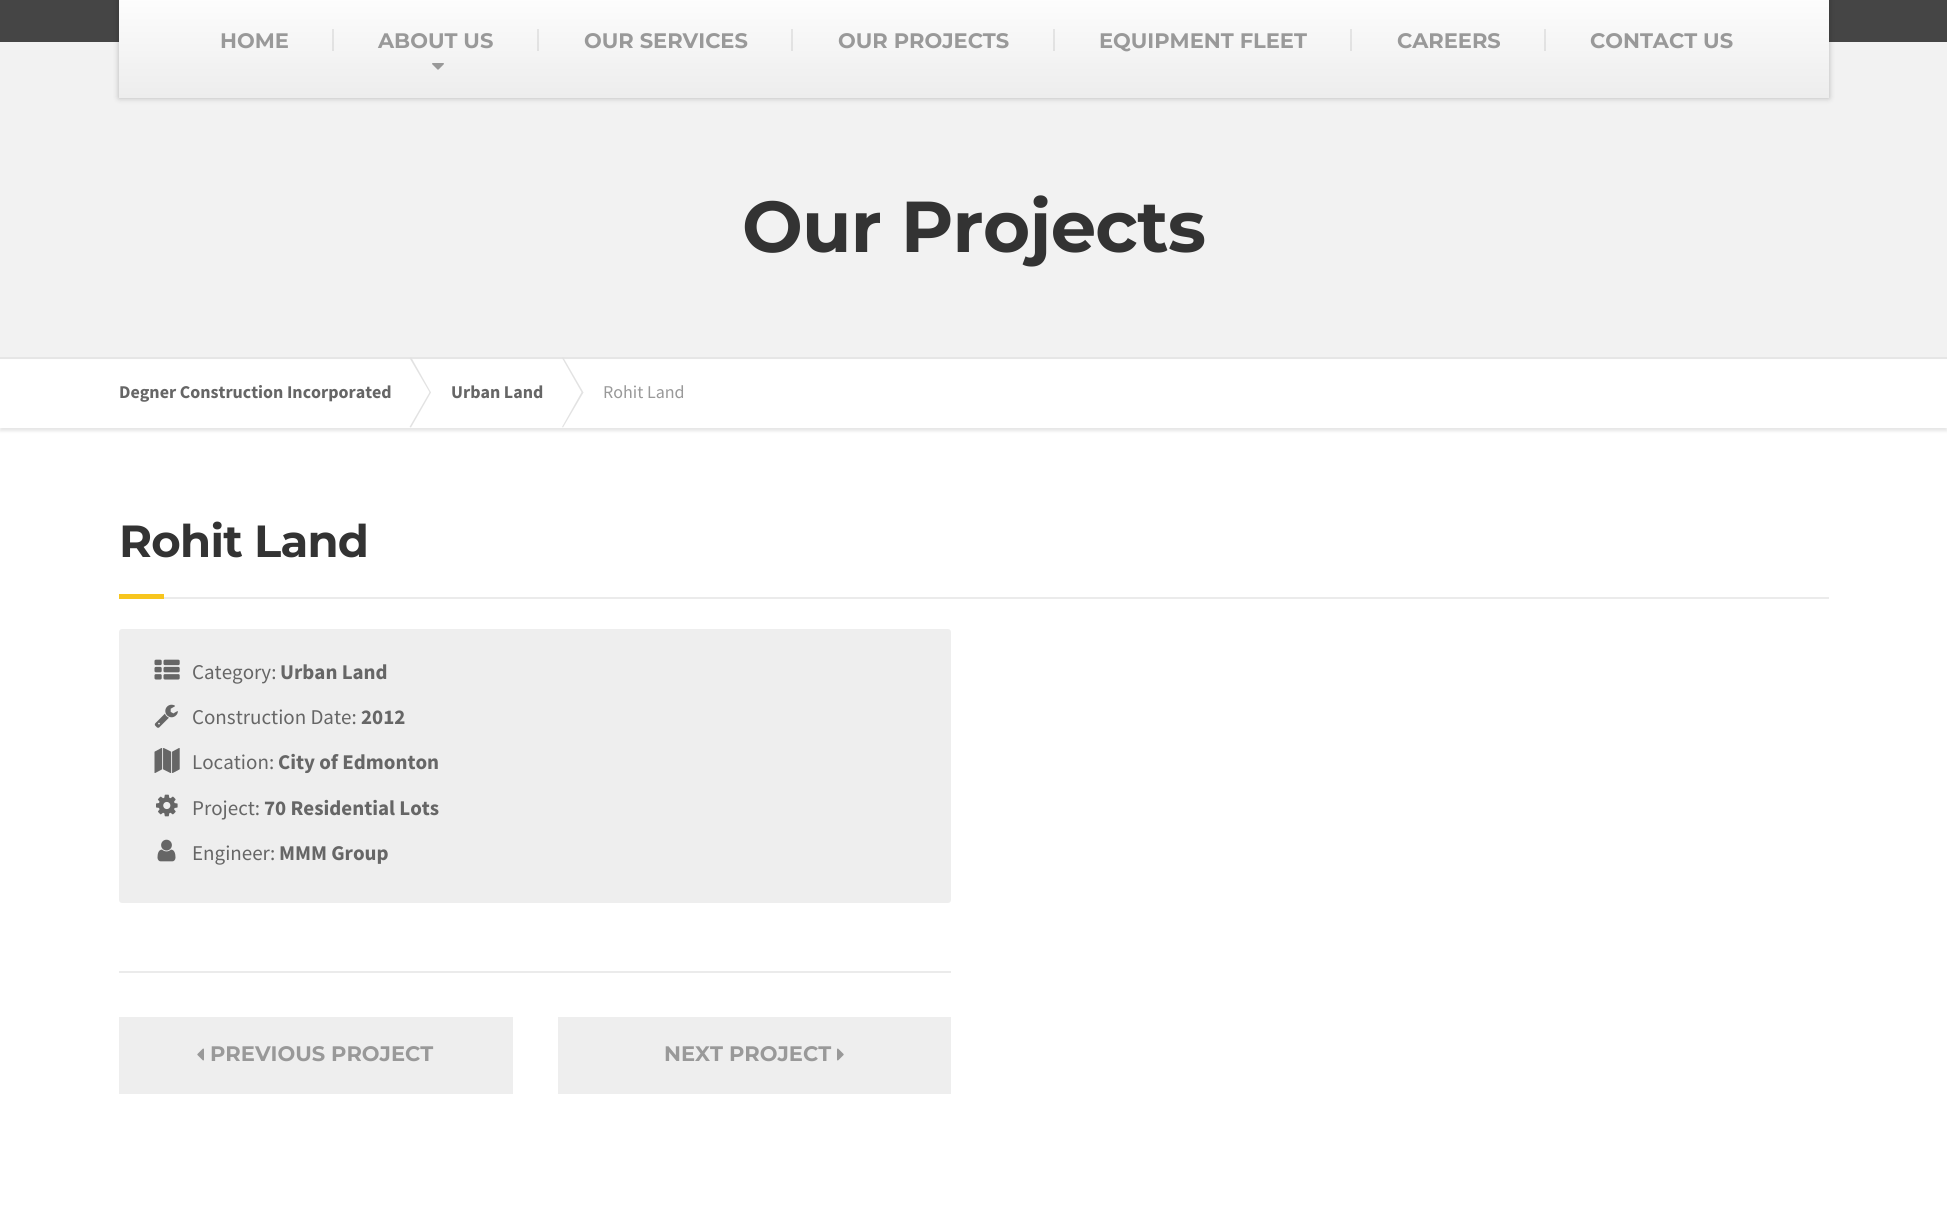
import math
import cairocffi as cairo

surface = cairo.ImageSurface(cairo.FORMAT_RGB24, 1947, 1232)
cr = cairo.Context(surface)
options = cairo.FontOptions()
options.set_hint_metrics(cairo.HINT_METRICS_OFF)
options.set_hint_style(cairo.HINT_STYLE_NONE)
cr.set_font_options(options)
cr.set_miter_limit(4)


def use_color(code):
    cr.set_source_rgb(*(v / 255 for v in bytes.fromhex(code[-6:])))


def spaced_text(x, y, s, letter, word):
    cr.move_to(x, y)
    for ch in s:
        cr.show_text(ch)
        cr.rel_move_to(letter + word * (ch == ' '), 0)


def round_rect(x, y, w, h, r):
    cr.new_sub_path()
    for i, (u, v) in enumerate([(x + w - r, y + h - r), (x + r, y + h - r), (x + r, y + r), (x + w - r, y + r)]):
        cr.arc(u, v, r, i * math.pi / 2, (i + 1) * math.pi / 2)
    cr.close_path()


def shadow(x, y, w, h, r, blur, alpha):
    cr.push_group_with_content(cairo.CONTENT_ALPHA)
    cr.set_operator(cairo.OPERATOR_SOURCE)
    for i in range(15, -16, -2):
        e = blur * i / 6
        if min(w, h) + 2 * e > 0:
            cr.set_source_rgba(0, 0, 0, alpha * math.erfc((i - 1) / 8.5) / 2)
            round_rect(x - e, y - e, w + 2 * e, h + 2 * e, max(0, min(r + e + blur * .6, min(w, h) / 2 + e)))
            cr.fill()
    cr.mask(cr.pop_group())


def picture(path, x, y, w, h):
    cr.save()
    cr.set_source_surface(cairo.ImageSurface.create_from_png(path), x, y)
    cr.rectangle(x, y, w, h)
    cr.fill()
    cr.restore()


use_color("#ffffff")
cr.paint()
use_color("#454545")
cr.rectangle(0, 0, 1947, 42)
cr.fill()
use_color("#f2f2f2")
cr.rectangle(0, 42, 1947, 315)
cr.fill()
use_color("#000000")
shadow(119, -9, 1710, 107, 0, 3, 0.25)
gradient = cairo.LinearGradient(974, -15, 974, 98)
gradient.add_color_stop_rgba(0, 1, 1, 1, 1)
gradient.add_color_stop_rgba(1, 0.929, 0.929, 0.929, 1)
cr.set_source(gradient)
cr.rectangle(119, 0, 1710, 98)
cr.fill()
gradient = cairo.LinearGradient(974, -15, 974, 98)
gradient.add_color_stop_rgba(0, 0.922, 0.922, 0.922, 1)
gradient.add_color_stop_rgba(1, 0.855, 0.855, 0.855, 1)
cr.set_source(gradient)
cr.rectangle(1544, 29, 2, 22)
cr.fill()
cr.rectangle(1350, 29, 2, 22)
cr.fill()
cr.rectangle(1053, 29, 2, 22)
cr.fill()
cr.rectangle(791, 29, 2, 22)
cr.fill()
cr.rectangle(537, 29, 2, 22)
cr.fill()
cr.rectangle(332, 29, 2, 22)
cr.fill()
cr.select_font_face("Montserrat Thin")
cr.set_font_size(21)
use_color("#999999")
cr.move_to(220, 48)
cr.show_text("HOME")
cr.move_to(378, 48)
cr.show_text("ABOUT US")
picture("img1.png", 432, 63, 12, 7)
cr.move_to(584, 48)
cr.show_text("OUR SERVICES")
cr.move_to(838, 48)
cr.show_text("OUR PROJECTS")
cr.move_to(1099, 48)
cr.show_text("EQUIPMENT FLEET")
cr.move_to(1397, 48)
cr.show_text("CAREERS")
cr.move_to(1590, 48)
cr.show_text("CONTACT US")
use_color("#e6e6e6")
cr.rectangle(0, 357, 1947, 2)
cr.fill()
cr.set_font_size(72)
use_color("#333333")
spaced_text(742, 252, "Our Projects", -0.75, 0)
use_color("#e6e6e6")
shadow(0, 362, 1947, 69, 0, 1.5, 1)
use_color("#ffffff")
cr.rectangle(0, 360, 1947, 68)
cr.fill()
cr.select_font_face("Source Sans Pro", cairo.FONT_SLANT_NORMAL, cairo.FONT_WEIGHT_BOLD)
cr.set_font_size(18)
use_color("#666666")
cr.move_to(119, 398)
cr.show_text("Degner Construction Incorporated")
use_color("#e2e2e2")
cr.new_path()
cr.move_to(409.5, 358)
cr.line_to(411, 357)
cr.line_to(431, 392.5)
cr.line_to(430, 393)
cr.close_path()
cr.fill()
cr.new_path()
cr.move_to(430, 391.5)
cr.line_to(431, 392.5)
cr.line_to(411, 427.5)
cr.line_to(409.5, 427)
cr.close_path()
cr.fill()
use_color("#666666")
cr.move_to(451, 398)
cr.show_text("Urban Land")
use_color("#e2e2e2")
cr.new_path()
cr.move_to(562, 358)
cr.line_to(563, 357)
cr.line_to(583.5, 392.5)
cr.line_to(582, 393)
cr.close_path()
cr.fill()
cr.new_path()
cr.move_to(582, 391.5)
cr.line_to(583.5, 392.5)
cr.line_to(563, 427.5)
cr.line_to(562, 427)
cr.close_path()
cr.fill()
cr.select_font_face("Source Sans Pro")
use_color("#999999")
cr.move_to(603, 398)
cr.show_text("Rohit Land")
use_color("#ebebeb")
cr.rectangle(164, 597, 1665, 2)
cr.fill()
cr.select_font_face("Montserrat Thin")
cr.set_font_size(45)
use_color("#333333")
spaced_text(119, 557, "Rohit Land", -0.75, 0)
use_color("#f7c51e")
cr.rectangle(119, 594, 45, 5)
cr.fill()
use_color("#eeeeee")
round_rect(119, 629, 832, 274, 3)
cr.fill()
picture("img2.png", 154, 659, 26, 21)
cr.select_font_face("Source Sans Pro")
cr.set_font_size(21)
use_color("#666666")
cr.move_to(192, 679)
cr.show_text("Category:")
cr.select_font_face("Source Sans Pro", cairo.FONT_SLANT_NORMAL, cairo.FONT_WEIGHT_BOLD)
cr.move_to(280, 679)
cr.show_text("Urban Land")
picture("img3.png", 154, 704, 24, 24)
cr.select_font_face("Source Sans Pro")
cr.move_to(192, 724)
cr.show_text("Construction Date:")
cr.select_font_face("Source Sans Pro", cairo.FONT_SLANT_NORMAL, cairo.FONT_WEIGHT_BOLD)
cr.move_to(361, 724)
cr.show_text("2012")
picture("img4.png", 154, 748, 26, 25)
cr.select_font_face("Source Sans Pro")
cr.move_to(192, 769)
cr.show_text("Location:")
cr.select_font_face("Source Sans Pro", cairo.FONT_SLANT_NORMAL, cairo.FONT_WEIGHT_BOLD)
cr.move_to(278, 769)
cr.show_text("City of Edmonton")
picture("img5.png", 156, 794, 22, 23)
cr.select_font_face("Source Sans Pro")
cr.move_to(192, 815)
cr.show_text("Project:")
cr.select_font_face("Source Sans Pro", cairo.FONT_SLANT_NORMAL, cairo.FONT_WEIGHT_BOLD)
cr.move_to(264, 815)
cr.show_text("70 Residential Lots")
picture("img6.png", 157, 839, 19, 23)
cr.select_font_face("Source Sans Pro")
cr.move_to(192, 860)
cr.show_text("Engineer:")
cr.select_font_face("Source Sans Pro", cairo.FONT_SLANT_NORMAL, cairo.FONT_WEIGHT_BOLD)
cr.move_to(279, 860)
cr.show_text("MMM Group")
use_color("#ebebeb")
cr.rectangle(119, 971, 832, 2)
cr.fill()
use_color("#eeeeee")
cr.rectangle(119, 1017, 394, 77)
cr.fill()
picture("img7.png", 197, 1048, 7, 13)
cr.select_font_face("Montserrat Thin")
use_color("#999999")
cr.move_to(210, 1061)
cr.show_text("PREVIOUS PROJECT")
use_color("#eeeeee")
cr.rectangle(558, 1017, 393, 77)
cr.fill()
use_color("#999999")
cr.move_to(664, 1061)
cr.show_text("NEXT PROJECT")
picture("img8.png", 837, 1048, 7, 13)
surface.write_to_png("result.png")
